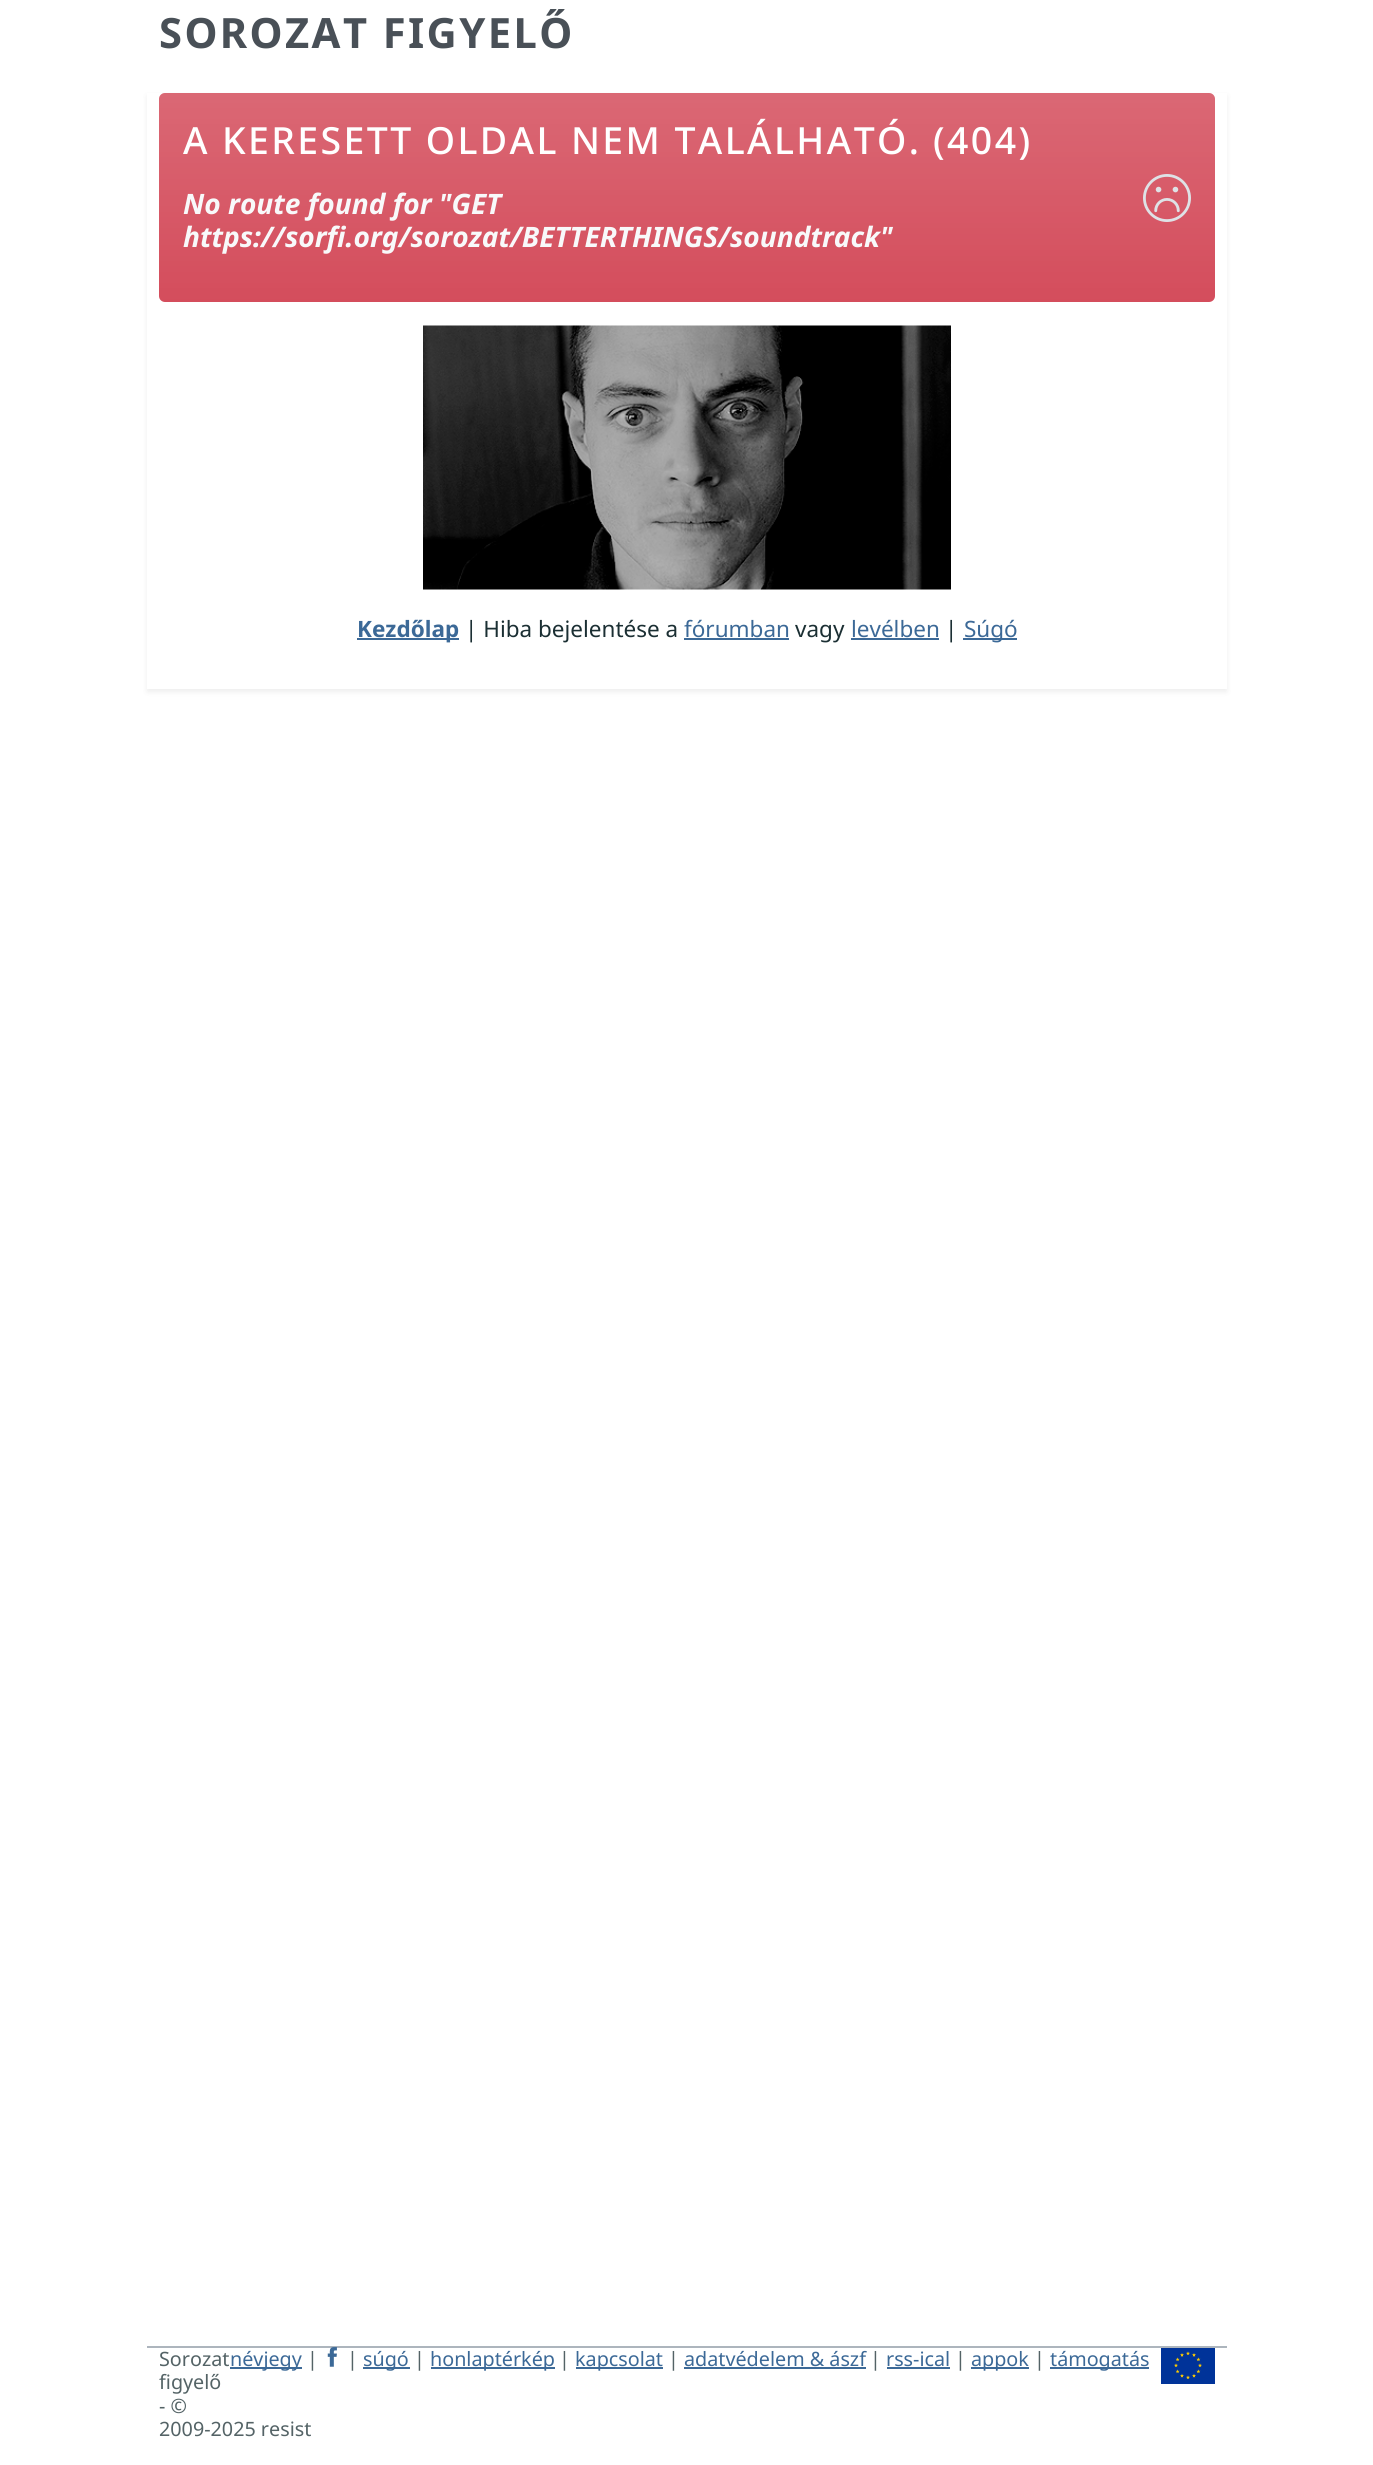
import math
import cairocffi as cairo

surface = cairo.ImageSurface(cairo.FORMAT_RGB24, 1373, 2465)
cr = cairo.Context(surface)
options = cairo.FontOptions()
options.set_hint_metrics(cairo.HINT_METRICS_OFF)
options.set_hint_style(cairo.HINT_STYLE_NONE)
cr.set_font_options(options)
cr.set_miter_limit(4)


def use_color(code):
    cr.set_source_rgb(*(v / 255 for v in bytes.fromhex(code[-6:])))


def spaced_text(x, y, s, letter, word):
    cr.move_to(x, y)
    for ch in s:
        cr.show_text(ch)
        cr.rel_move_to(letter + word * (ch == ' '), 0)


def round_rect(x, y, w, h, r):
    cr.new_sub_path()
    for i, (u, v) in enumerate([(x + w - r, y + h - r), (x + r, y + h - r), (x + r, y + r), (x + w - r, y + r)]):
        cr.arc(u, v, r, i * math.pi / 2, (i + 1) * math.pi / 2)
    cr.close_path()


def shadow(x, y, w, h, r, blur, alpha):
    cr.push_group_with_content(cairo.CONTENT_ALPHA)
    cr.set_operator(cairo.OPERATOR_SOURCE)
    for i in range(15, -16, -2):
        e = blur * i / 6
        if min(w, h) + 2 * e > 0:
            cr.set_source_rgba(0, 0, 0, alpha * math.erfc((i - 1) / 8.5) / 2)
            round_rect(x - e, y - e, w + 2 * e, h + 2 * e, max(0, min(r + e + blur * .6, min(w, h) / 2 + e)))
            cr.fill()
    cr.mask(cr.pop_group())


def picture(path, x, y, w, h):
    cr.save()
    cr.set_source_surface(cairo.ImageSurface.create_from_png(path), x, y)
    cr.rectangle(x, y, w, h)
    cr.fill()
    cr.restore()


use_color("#ffffff")
cr.paint()
cr.select_font_face("Noto Sans", cairo.FONT_SLANT_NORMAL, cairo.FONT_WEIGHT_BOLD)
cr.set_font_size(41.75)
use_color("#495057")
spaced_text(159, 48, "SOROZAT FIGYELŐ", 2.4, 0)
cr.save()
cr.set_fill_rule(cairo.FILL_RULE_EVEN_ODD)
cr.new_path()
cr.move_to(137, 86)
cr.line_to(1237, 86)
cr.line_to(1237, 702)
cr.line_to(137, 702)
cr.close_path()
cr.move_to(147, 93)
cr.line_to(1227, 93)
cr.line_to(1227, 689)
cr.line_to(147, 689)
cr.close_path()
cr.clip()
use_color("#000000")
shadow(147, 96, 1080, 596, 0, 3, 0.07)
cr.restore()
use_color("#d44d5c")
round_rect(159, 93, 1056, 209, 6)
cr.fill()
gradient = cairo.LinearGradient(687, 93, 687, 302)
gradient.add_color_stop_rgba(0, 1, 1, 1, 0.15)
gradient.add_color_stop_rgba(1, 1, 1, 1, 0)
cr.set_source(gradient)
round_rect(159, 93, 1056, 209, 6)
cr.fill()
cr.select_font_face("Noto Sans Medium")
cr.set_font_size(37.4)
use_color("#ffffff")
spaced_text(183, 154, "A KERESETT OLDAL NEM TALÁLHATÓ.", 2.4, 0)
spaced_text(933, 154, "(404)", 2.4, 0)
cr.select_font_face("Noto Sans", cairo.FONT_SLANT_ITALIC, cairo.FONT_WEIGHT_BOLD)
cr.set_font_size(28.1)
use_color("#f8f9fa")
cr.move_to(183, 214)
cr.show_text("No route found for \"GET")
cr.move_to(183, 247)
cr.show_text("https://sorfi.org/sorozat/BETTERTHINGS/soundtrack\"")
picture("img1.png", 1143, 174, 48, 48)
picture("img2.png", 423, 325, 528, 265)
use_color("#3c6997")
cr.rectangle(357, 638, 102, 2)
cr.fill()
cr.select_font_face("Noto Sans", cairo.FONT_SLANT_NORMAL, cairo.FONT_WEIGHT_BOLD)
cr.set_font_size(22.5)
cr.move_to(357, 637)
cr.show_text("Kezdőlap")
cr.select_font_face("Noto Sans")
use_color("#1b2f33")
cr.move_to(465, 637)
cr.show_text("| Hiba bejelentése a")
use_color("#3c6997")
cr.move_to(684, 637)
cr.show_text("fórumban")
cr.rectangle(684, 638, 105, 2)
cr.fill()
use_color("#1b2f33")
cr.move_to(795, 637)
cr.show_text("vagy")
use_color("#3c6997")
cr.move_to(851, 637)
cr.show_text("levélben")
cr.rectangle(851, 638, 88, 2)
cr.fill()
use_color("#1b2f33")
cr.move_to(945, 637)
cr.show_text("|")
use_color("#3c6997")
cr.rectangle(963, 638, 54, 2)
cr.fill()
cr.move_to(964, 637)
cr.show_text("Súgó")
use_color("#adb5bd")
cr.rectangle(147, 2346, 1080, 2)
cr.fill()
use_color("#3c6997")
cr.rectangle(230, 2367, 72, 2)
cr.fill()
cr.set_font_size(19.75)
cr.move_to(230, 2366)
cr.show_text("névjegy")
use_color("#546366")
cr.move_to(307, 2366)
cr.show_text("|")
picture("img3.png", 327, 2347, 10, 20)
cr.move_to(347, 2366)
cr.show_text("|")
use_color("#3c6997")
cr.rectangle(363, 2367, 47, 2)
cr.fill()
cr.move_to(363, 2366)
cr.show_text("súgó")
use_color("#546366")
cr.move_to(414, 2366)
cr.show_text("|")
use_color("#3c6997")
cr.rectangle(431, 2367, 124, 2)
cr.fill()
cr.move_to(430, 2366)
cr.show_text("honlaptérkép")
use_color("#546366")
cr.move_to(559, 2366)
cr.show_text("|")
use_color("#3c6997")
cr.rectangle(576, 2367, 87, 2)
cr.fill()
cr.move_to(575, 2366)
cr.show_text("kapcsolat")
use_color("#546366")
cr.move_to(668, 2366)
cr.show_text("|")
use_color("#3c6997")
cr.move_to(684, 2366)
cr.show_text("adatvédelem & ászf")
cr.rectangle(684, 2367, 182, 2)
cr.fill()
use_color("#546366")
cr.move_to(870, 2366)
cr.show_text("|")
use_color("#3c6997")
cr.move_to(886, 2366)
cr.show_text("rss-ical")
cr.rectangle(887, 2367, 63, 2)
cr.fill()
use_color("#546366")
cr.move_to(955, 2366)
cr.show_text("|")
use_color("#3c6997")
cr.rectangle(971, 2367, 58, 2)
cr.fill()
cr.move_to(971, 2366)
cr.show_text("appok")
use_color("#546366")
cr.move_to(1034, 2366)
cr.show_text("|")
use_color("#3c6997")
cr.rectangle(1050, 2367, 99, 2)
cr.fill()
cr.move_to(1050, 2366)
cr.show_text("támogatás")
picture("img4.png", 1161, 2348, 54, 36)
use_color("#546366")
cr.move_to(159, 2366)
cr.show_text("Sorozat")
cr.move_to(159, 2389)
cr.show_text("figyelő")
cr.move_to(159, 2413)
cr.show_text("- ©")
cr.move_to(159, 2436)
cr.show_text("2009-2025 resist")
surface.write_to_png("result.png")
